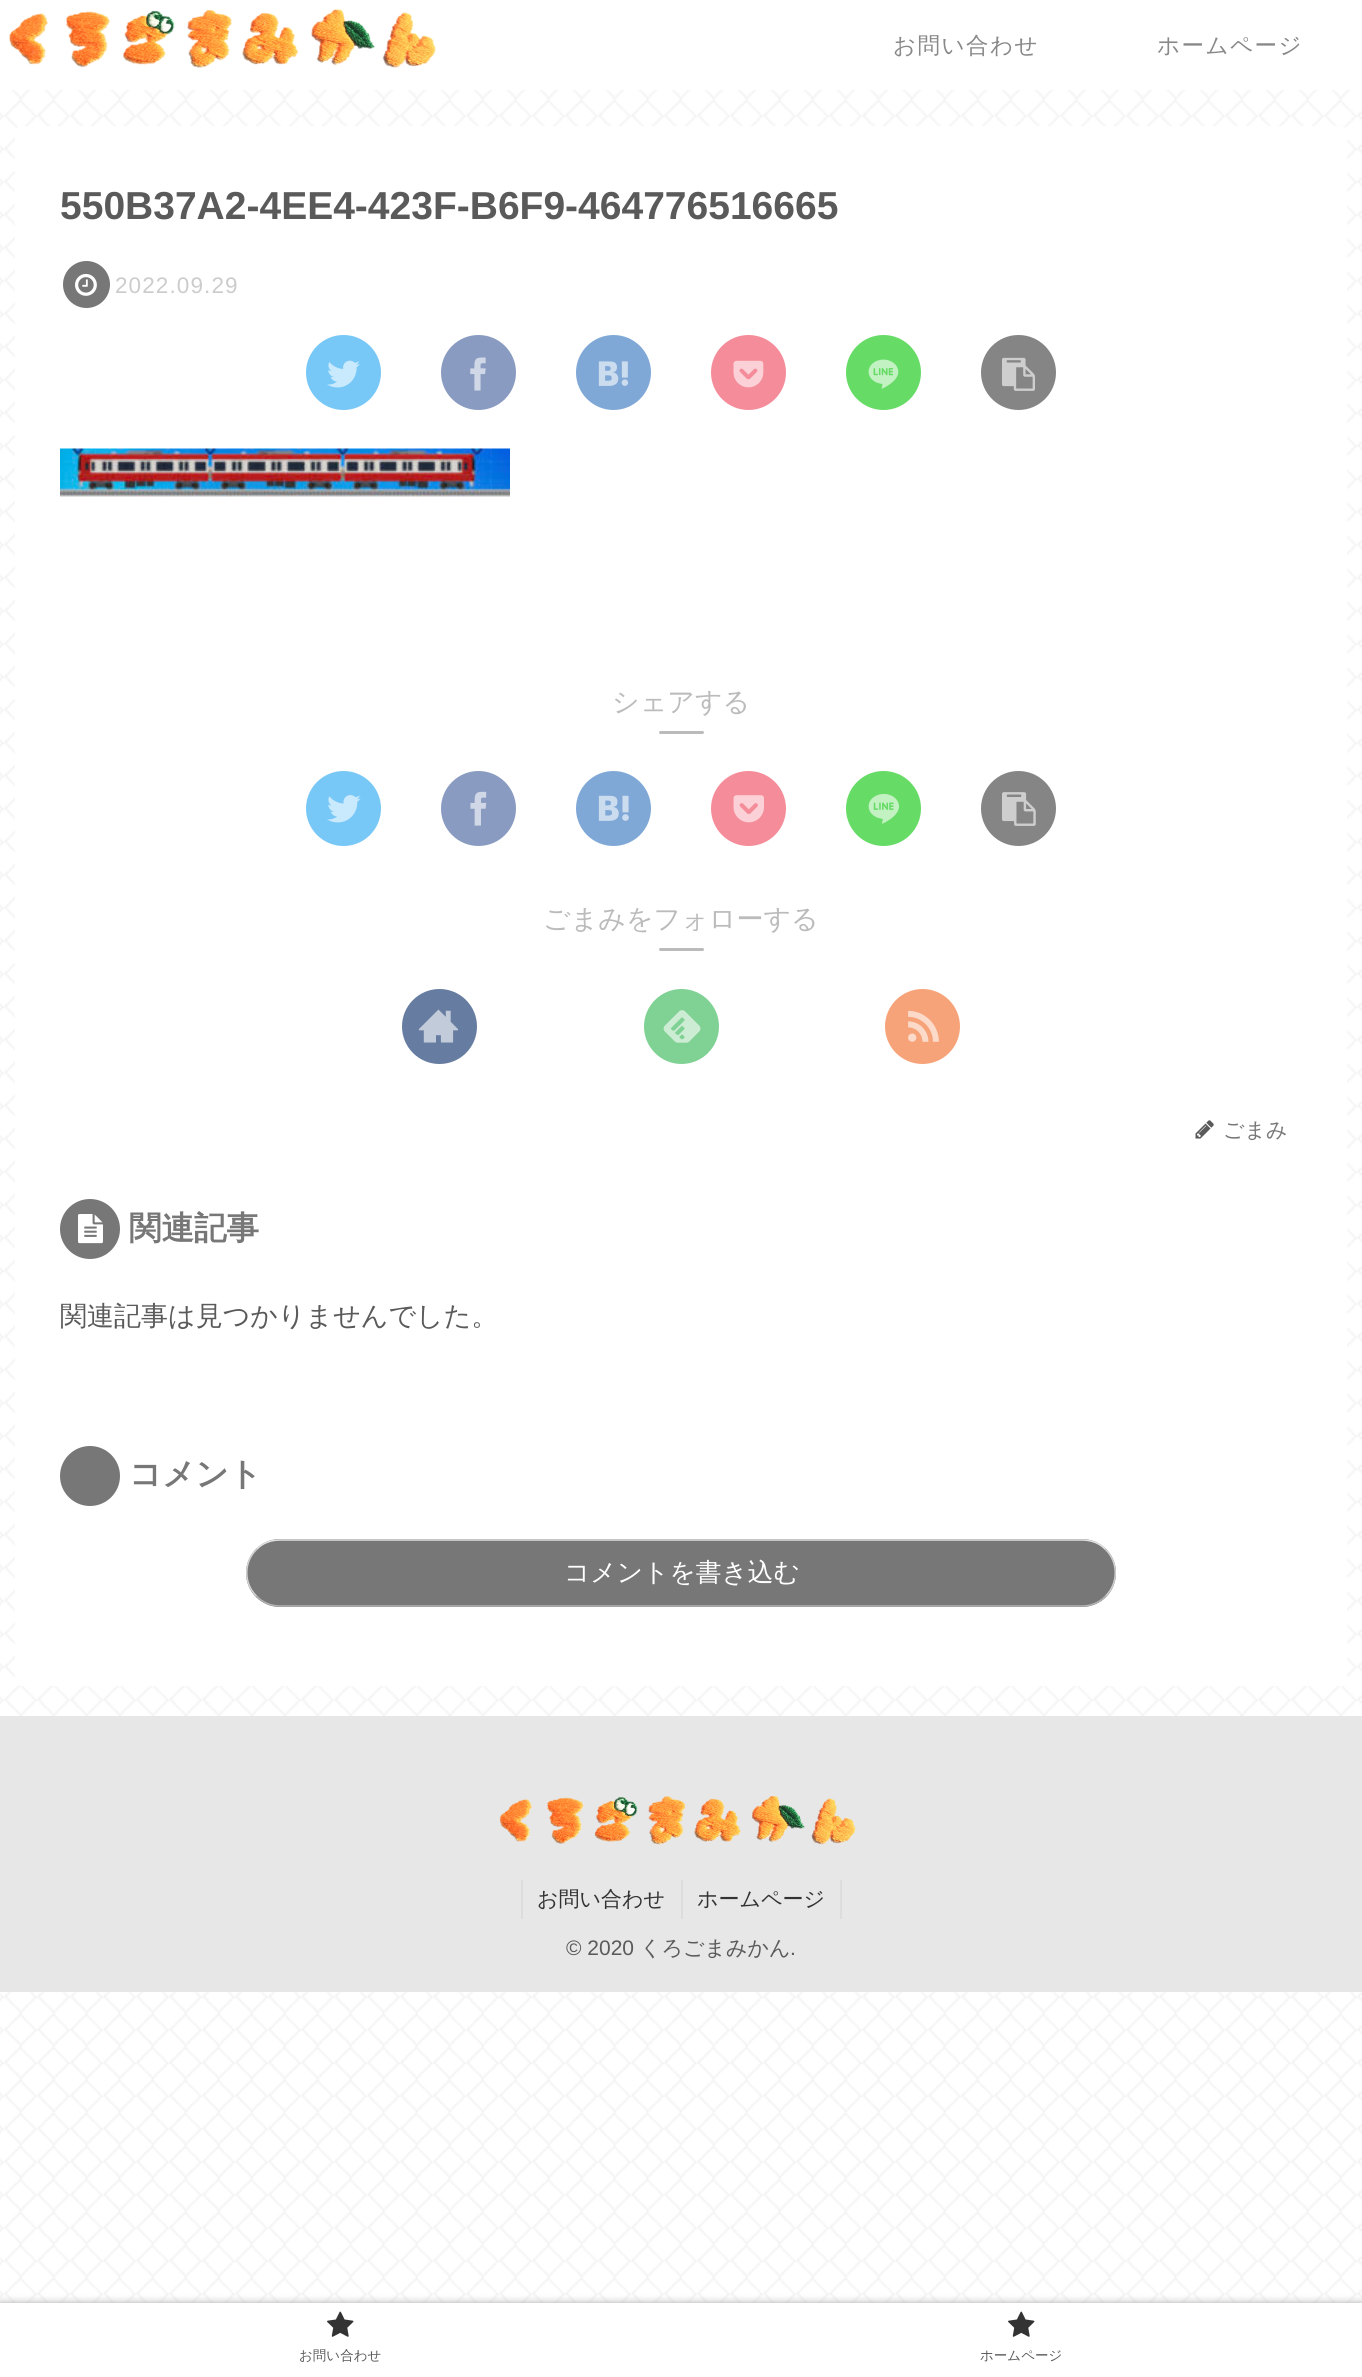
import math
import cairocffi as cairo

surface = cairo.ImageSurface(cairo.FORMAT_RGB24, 1362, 2377)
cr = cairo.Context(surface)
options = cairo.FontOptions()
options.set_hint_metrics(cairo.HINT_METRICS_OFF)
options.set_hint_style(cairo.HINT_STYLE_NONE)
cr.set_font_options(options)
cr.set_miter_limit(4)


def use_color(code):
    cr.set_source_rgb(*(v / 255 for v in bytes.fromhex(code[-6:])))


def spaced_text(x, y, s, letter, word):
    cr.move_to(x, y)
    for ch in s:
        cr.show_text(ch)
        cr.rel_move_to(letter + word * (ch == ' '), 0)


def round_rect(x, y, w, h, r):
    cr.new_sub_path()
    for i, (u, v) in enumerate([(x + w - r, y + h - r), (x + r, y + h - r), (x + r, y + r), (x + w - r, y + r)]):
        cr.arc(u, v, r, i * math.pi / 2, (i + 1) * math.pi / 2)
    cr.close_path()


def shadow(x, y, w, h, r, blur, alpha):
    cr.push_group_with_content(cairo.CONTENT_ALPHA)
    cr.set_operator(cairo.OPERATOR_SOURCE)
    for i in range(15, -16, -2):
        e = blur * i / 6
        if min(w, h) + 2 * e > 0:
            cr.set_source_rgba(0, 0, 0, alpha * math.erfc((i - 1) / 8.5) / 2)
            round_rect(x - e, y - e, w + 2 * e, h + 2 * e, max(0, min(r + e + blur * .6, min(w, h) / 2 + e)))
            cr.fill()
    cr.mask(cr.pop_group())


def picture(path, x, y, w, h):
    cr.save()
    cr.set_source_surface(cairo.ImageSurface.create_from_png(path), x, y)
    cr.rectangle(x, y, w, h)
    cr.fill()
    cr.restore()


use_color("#ffffff")
cr.paint()
picture("img1.png", 0, 90, 1362, 2213)
picture("img2.png", 9, 9, 427, 59)
cr.select_font_face("WenQuanYi Zen Hei Medium")
cr.set_font_size(22.5)
use_color("#888888")
spaced_text(893, 53, "お問い合わせ", 1.5, 0)
spaced_text(1157, 53, "ホームページ", 1.5, 0)
use_color("#ffffff")
round_rect(15, 126, 1332, 1560, 6)
cr.fill()
cr.select_font_face("Liberation Sans", cairo.FONT_SLANT_NORMAL, cairo.FONT_WEIGHT_BOLD)
cr.set_font_size(39)
use_color("#5a5a5a")
cr.move_to(60, 219)
cr.show_text("550B37A2-4EE4-423F-B6F9-464776516665")
use_color("#777777")
cr.new_path()
cr.arc(86.5, 284.5, 23.5, 0, 2 * math.pi)
cr.fill()
picture("img3.png", 75, 274, 22, 22)
cr.select_font_face("Liberation Sans")
cr.set_font_size(22.5)
use_color("#cccccc")
spaced_text(115, 293, "2022.09.29", 1.1, 0)
use_color("#77c7f7")
cr.new_path()
cr.arc(343.5, 372.5, 37.5, 0, 2 * math.pi)
cr.fill()
picture("img4.png", 327, 360, 33, 28)
use_color("#899bc1")
cr.arc(478.5, 372.5, 37.5, 0, 2 * math.pi)
cr.fill()
picture("img5.png", 470, 357, 16, 34)
use_color("#80a8d7")
cr.arc(613.5, 372.5, 37.5, 0, 2 * math.pi)
cr.fill()
picture("img6.png", 598, 361, 31, 25)
use_color("#f58c9a")
cr.arc(748.5, 372.5, 37.5, 0, 2 * math.pi)
cr.fill()
picture("img7.png", 733, 360, 31, 28)
use_color("#66db66")
cr.arc(883.5, 372.5, 37.5, 0, 2 * math.pi)
cr.fill()
picture("img8.png", 868, 359, 31, 30)
use_color("#858585")
cr.arc(1018.5, 372.5, 37.5, 0, 2 * math.pi)
cr.fill()
picture("img9.png", 1002, 357, 33, 34)
picture("img10.png", 60, 448, 450, 49)
cr.select_font_face("WenQuanYi Zen Hei Medium")
cr.set_font_size(27)
use_color("#bbbbbb")
cr.move_to(612, 711)
cr.show_text("シェアする")
round_rect(659, 731, 45, 3, 1.5)
cr.fill()
use_color("#77c7f7")
cr.arc(343.5, 808.5, 37.5, 0, 2 * math.pi)
cr.fill()
picture("img11.png", 327, 795, 34, 28)
use_color("#899bc1")
cr.arc(478.5, 808.5, 37.5, 0, 2 * math.pi)
cr.fill()
picture("img12.png", 470, 791, 17, 35)
use_color("#80a8d7")
cr.arc(613.5, 808.5, 37.5, 0, 2 * math.pi)
cr.fill()
picture("img13.png", 598, 795, 31, 26)
use_color("#f58c9a")
cr.arc(748.5, 808.5, 37.5, 0, 2 * math.pi)
cr.fill()
picture("img14.png", 733, 795, 31, 28)
use_color("#66db66")
cr.arc(883.5, 808.5, 37.5, 0, 2 * math.pi)
cr.fill()
picture("img15.png", 868, 793, 31, 31)
use_color("#858585")
cr.arc(1018.5, 808.5, 37.5, 0, 2 * math.pi)
cr.fill()
picture("img16.png", 1002, 792, 34, 34)
use_color("#bbbbbb")
cr.move_to(543, 928)
cr.show_text("ごまみをフォローする")
round_rect(659, 948, 45, 3, 1.5)
cr.fill()
use_color("#667ca0")
cr.arc(439.5, 1026.5, 37.5, 0, 2 * math.pi)
cr.fill()
picture("img17.png", 418, 1009, 40, 34)
use_color("#80d194")
cr.arc(681.5, 1026.5, 37.5, 0, 2 * math.pi)
cr.fill()
picture("img18.png", 663, 1010, 38, 33)
use_color("#f7a37a")
cr.arc(922.5, 1026.5, 37.5, 0, 2 * math.pi)
cr.fill()
picture("img19.png", 908, 1010, 31, 32)
picture("img20.png", 1195, 1120, 19, 19)
cr.set_font_size(21)
use_color("#777777")
cr.move_to(1223, 1137)
cr.show_text("ごまみ")
cr.new_path()
cr.arc(90, 1229, 30, 0, 2 * math.pi)
cr.fill()
picture("img21.png", 78, 1214, 25, 30)
cr.select_font_face("WenQuanYi Zen Hei", cairo.FONT_SLANT_NORMAL, cairo.FONT_WEIGHT_BOLD)
cr.set_font_size(32.5)
cr.move_to(129, 1239)
cr.show_text("関連記事")
cr.select_font_face("WenQuanYi Zen Hei Medium")
cr.set_font_size(27)
use_color("#5a5a5a")
cr.move_to(60, 1325)
cr.show_text("関連記事は見つかりませんでした。")
use_color("#777777")
cr.new_path()
cr.arc(90, 1476, 30, 0, 2 * math.pi)
cr.fill()
cr.select_font_face("WenQuanYi Zen Hei", cairo.FONT_SLANT_NORMAL, cairo.FONT_WEIGHT_BOLD)
cr.set_font_size(32.5)
cr.move_to(129, 1485)
cr.show_text("コメント")
round_rect(246, 1539, 870, 68, 34)
cr.fill()
cr.new_path()
cr.move_to(256.5, 1549.5)
cr.curve_to(262.5, 1543, 271, 1540, 280, 1540)
cr.line_to(1082, 1540)
cr.curve_to(1091, 1540, 1099.5, 1543, 1105.5, 1549.5)
use_color("#e3e3e3")
cr.set_line_width(1.5)
cr.stroke()
cr.new_path()
cr.move_to(1105.5, 1549.5)
cr.curve_to(1118.5, 1562, 1118.5, 1583.5, 1105.5, 1596)
use_color("#cecece")
cr.stroke()
cr.new_path()
cr.move_to(1105.5, 1596)
cr.curve_to(1099.5, 1602.5, 1091, 1606, 1082, 1606)
cr.line_to(280, 1606)
cr.curve_to(271, 1606, 262.5, 1602.5, 256.5, 1596)
use_color("#b4b4b4")
cr.stroke()
cr.new_path()
cr.move_to(256.5, 1596)
cr.curve_to(243.5, 1583.5, 243.5, 1562, 256.5, 1549.5)
use_color("#d6d6d6")
cr.stroke()
cr.select_font_face("WenQuanYi Zen Hei Medium")
cr.set_font_size(25.75)
use_color("#ffffff")
cr.move_to(564, 1581)
cr.show_text("コメントを書き込む")
use_color("#e7e7e7")
cr.rectangle(0, 1716, 1362, 276)
cr.fill()
picture("img22.png", 499, 1796, 357, 49)
use_color("#dddddd")
cr.rectangle(521, 1880, 2, 39)
cr.fill()
cr.set_font_size(21)
use_color("#333333")
cr.move_to(537, 1906)
cr.show_text("お問い合わせ")
use_color("#dddddd")
cr.rectangle(840, 1880, 2, 39)
cr.fill()
cr.rectangle(681, 1880, 2, 39)
cr.fill()
use_color("#333333")
cr.move_to(697, 1906)
cr.show_text("ホームページ")
cr.select_font_face("Liberation Sans")
use_color("#5a5a5a")
cr.move_to(566, 1955)
cr.show_text("© 2020")
cr.select_font_face("WenQuanYi Zen Hei Medium")
cr.move_to(640, 1955)
cr.show_text("くろごまみかん")
cr.select_font_face("Liberation Sans")
cr.move_to(790, 1955)
cr.show_text(".")
use_color("#a9a9a9")
shadow(0, 2303, 1362, 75, 0, 4, 1)
use_color("#ffffff")
cr.rectangle(0, 2303, 1362, 74)
cr.fill()
picture("img23.png", 327, 2311, 27, 26)
cr.select_font_face("WenQuanYi Zen Hei Medium")
cr.set_font_size(13.5)
use_color("#5a5a5a")
cr.move_to(299, 2360)
cr.show_text("お問い合わせ")
picture("img23.png", 1008, 2311, 27, 26)
cr.move_to(980, 2360)
cr.show_text("ホームページ")
surface.write_to_png("result.png")
